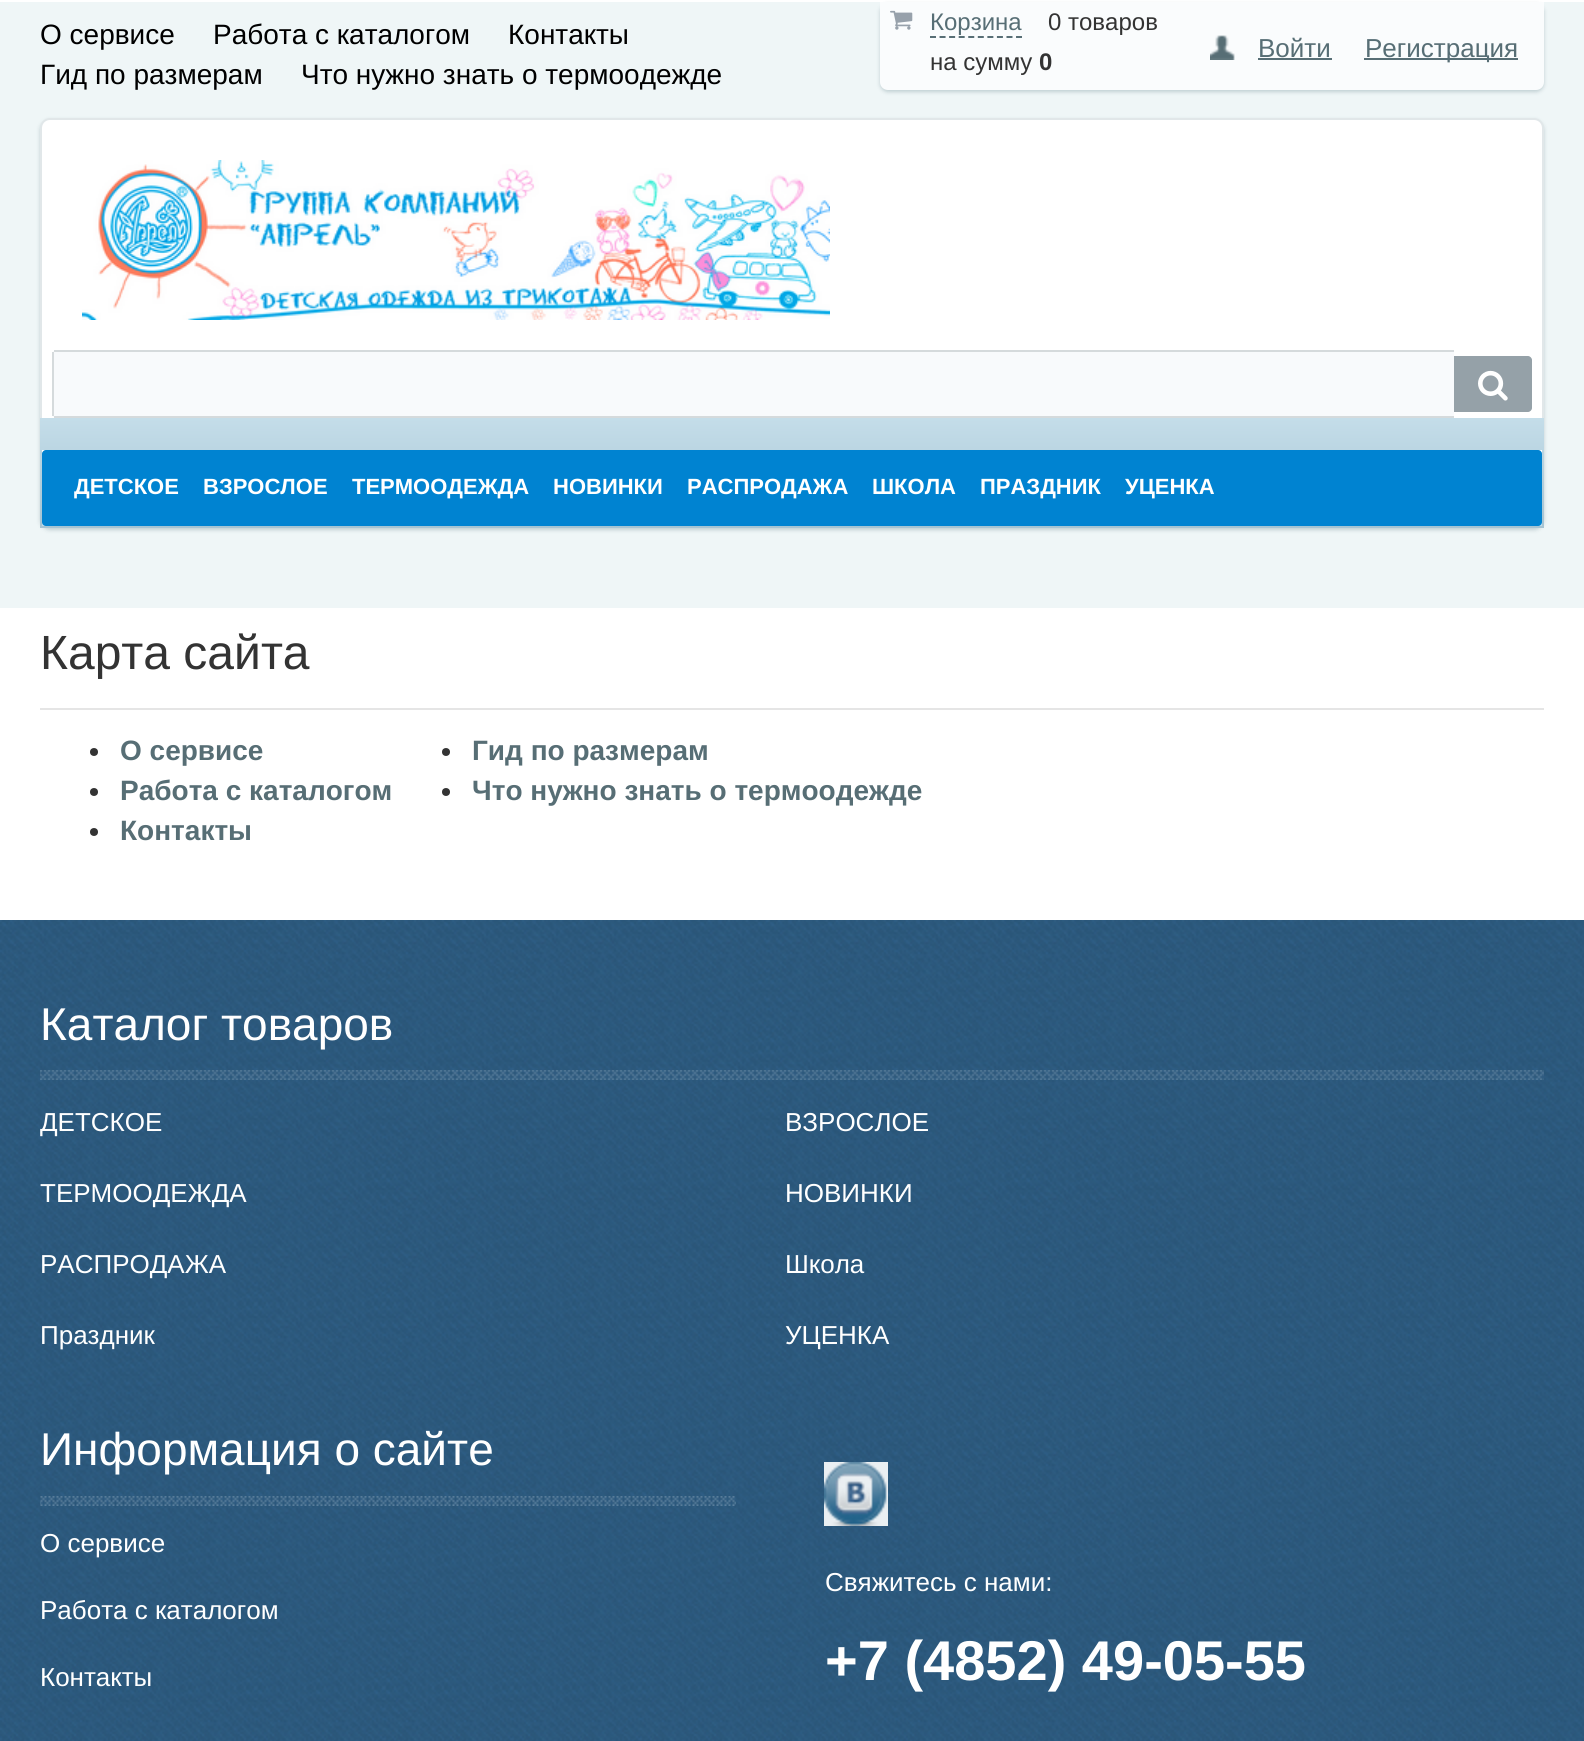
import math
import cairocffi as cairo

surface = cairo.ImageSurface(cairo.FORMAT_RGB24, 1584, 1741)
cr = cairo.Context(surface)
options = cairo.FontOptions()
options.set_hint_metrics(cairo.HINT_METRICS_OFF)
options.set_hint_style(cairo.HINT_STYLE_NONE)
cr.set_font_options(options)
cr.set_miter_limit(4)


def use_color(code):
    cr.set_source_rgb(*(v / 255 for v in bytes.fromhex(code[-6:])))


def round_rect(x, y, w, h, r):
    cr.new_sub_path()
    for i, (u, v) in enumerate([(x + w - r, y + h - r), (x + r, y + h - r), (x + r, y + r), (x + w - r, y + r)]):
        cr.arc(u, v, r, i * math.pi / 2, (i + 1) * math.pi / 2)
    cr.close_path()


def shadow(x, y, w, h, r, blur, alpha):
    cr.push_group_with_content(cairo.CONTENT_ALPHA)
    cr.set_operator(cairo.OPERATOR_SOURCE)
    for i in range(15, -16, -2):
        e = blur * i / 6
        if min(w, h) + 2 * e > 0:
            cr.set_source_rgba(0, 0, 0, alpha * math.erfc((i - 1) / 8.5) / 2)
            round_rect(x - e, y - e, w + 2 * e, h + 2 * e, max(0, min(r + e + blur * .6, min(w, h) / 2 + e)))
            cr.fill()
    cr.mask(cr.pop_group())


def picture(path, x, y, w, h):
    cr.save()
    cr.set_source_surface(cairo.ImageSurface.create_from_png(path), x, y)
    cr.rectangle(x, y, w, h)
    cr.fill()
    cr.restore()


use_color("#ffffff")
cr.paint()
use_color("#eff6f7")
cr.rectangle(0, 2, 1584, 606)
cr.fill()
cr.select_font_face("Liberation Sans")
cr.set_font_size(28)
use_color("#000000")
cr.move_to(40, 44)
cr.show_text("О сервисе")
cr.move_to(213, 44)
cr.show_text("Работа с каталогом")
cr.move_to(508, 44)
cr.show_text("Контакты")
cr.move_to(40, 84)
cr.show_text("Гид по размерам")
cr.move_to(301, 84)
cr.show_text("Что нужно знать о термоодежде")
use_color("#385e68")
shadow(880, 4, 664, 88, 8, 2, 0.26)
use_color("#fafcfd")
cr.new_path()
cr.move_to(880, 2)
cr.line_to(1544, 2)
cr.line_to(1544, 82)
cr.curve_to(1544, 86.5, 1540.5, 90, 1536, 90)
cr.line_to(888, 90)
cr.curve_to(883.5, 90, 880, 86.5, 880, 82)
cr.close_path()
cr.fill()
picture("img1.png", 890, 10, 23, 20)
cr.set_font_size(24)
use_color("#576e75")
cr.move_to(930, 30)
cr.show_text("Корзина")
cr.new_path()
cr.move_to(930, 37)
cr.line_to(1022, 37)
cr.set_dash([6, 3.56])
cr.stroke()
use_color("#333333")
cr.move_to(1048, 30)
cr.show_text("0 товаров")
cr.move_to(930, 70)
cr.show_text("на сумму")
cr.select_font_face("Liberation Sans", cairo.FONT_SLANT_NORMAL, cairo.FONT_WEIGHT_BOLD)
cr.move_to(1039, 70)
cr.show_text("0")
picture("img2.png", 1210, 35, 25, 25)
cr.select_font_face("Liberation Sans")
cr.set_font_size(26)
use_color("#576e75")
cr.move_to(1258, 57)
cr.show_text("Войти")
cr.rectangle(1258, 58, 74, 2)
cr.fill()
cr.rectangle(1364, 58, 154, 2)
cr.fill()
cr.move_to(1365, 57)
cr.show_text("Регистрация")
use_color("#385e68")
shadow(40, 120, 1504, 410, 10, 2, 0.26)
use_color("#ffffff")
cr.new_path()
cr.move_to(50, 119)
cr.line_to(1534, 119)
cr.curve_to(1539, 119, 1543, 123, 1543, 128)
cr.line_to(1543, 527)
cr.line_to(41, 527)
cr.line_to(41, 128)
cr.curve_to(41, 123, 45, 119, 50, 119)
cr.close_path()
cr.fill_preserve()
use_color("#e1e7e9")
cr.set_dash([])
cr.stroke()
picture("img3.png", 82, 160, 748, 160)
use_color("#f8fafc")
cr.new_path()
cr.move_to(56, 350)
cr.line_to(1454, 350)
cr.line_to(1454, 418)
cr.line_to(56, 418)
cr.curve_to(54, 418, 52, 416, 52, 414)
cr.line_to(52, 354)
cr.curve_to(52, 352, 54, 350, 56, 350)
cr.close_path()
cr.fill()
use_color("#d5dadc")
cr.rectangle(54, 350, 1400, 2)
cr.fill()
cr.rectangle(54, 416, 1400, 2)
cr.fill()
cr.rectangle(52, 352, 2, 64)
cr.fill()
use_color("#95a1a8")
cr.new_path()
cr.move_to(1454, 356)
cr.line_to(1528, 356)
cr.curve_to(1530, 356, 1532, 358, 1532, 360)
cr.line_to(1532, 408)
cr.curve_to(1532, 410, 1530, 412, 1528, 412)
cr.line_to(1454, 412)
cr.close_path()
cr.fill()
picture("img4.png", 1478, 370, 30, 31)
gradient = cairo.LinearGradient(792, 418, 792, 528)
gradient.add_color_stop_rgba(0, 0.769, 0.867, 0.914, 1)
gradient.add_color_stop_rgba(1, 0.651, 0.769, 0.827, 1)
cr.set_source(gradient)
cr.rectangle(40, 418, 1504, 110)
cr.fill()
gradient = cairo.LinearGradient(792, 450, 792, 526)
gradient.add_color_stop_rgba(0, 0.925, 0.961, 0.98, 1)
gradient.add_color_stop_rgba(1, 0.749, 0.867, 0.925, 1)
cr.set_source(gradient)
cr.rectangle(42, 452, 1500, 74)
cr.fill()
use_color("#ffffff")
cr.rectangle(42, 450, 1500, 2)
cr.fill()
use_color("#0083d1")
round_rect(42, 450, 1500, 76, 4)
cr.fill()
cr.select_font_face("Liberation Sans", cairo.FONT_SLANT_NORMAL, cairo.FONT_WEIGHT_BOLD)
cr.set_font_size(22)
use_color("#ffffff")
cr.move_to(74, 494)
cr.show_text("ДЕТСКОЕ")
cr.move_to(203, 494)
cr.show_text("ВЗРОСЛОЕ")
cr.move_to(352, 494)
cr.show_text("ТЕРМООДЕЖДА")
cr.move_to(553, 494)
cr.show_text("НОВИНКИ")
cr.move_to(687, 494)
cr.show_text("РАСПРОДАЖА")
cr.move_to(872, 494)
cr.show_text("ШКОЛА")
cr.move_to(980, 494)
cr.show_text("ПРАЗДНИК")
cr.move_to(1125, 494)
cr.show_text("УЦЕНКА")
use_color("#e5e5e5")
cr.rectangle(40, 708, 1504, 2)
cr.fill()
cr.select_font_face("Liberation Sans")
cr.set_font_size(48)
use_color("#333333")
cr.move_to(40, 669)
cr.show_text("Карта сайта")
cr.new_path()
cr.arc(94, 752, 4, 0, 2 * math.pi)
cr.fill()
cr.select_font_face("Liberation Sans", cairo.FONT_SLANT_NORMAL, cairo.FONT_WEIGHT_BOLD)
cr.set_font_size(28)
use_color("#576e75")
cr.move_to(120, 760)
cr.show_text("О сервисе")
use_color("#333333")
cr.new_path()
cr.arc(94, 792, 4, 0, 2 * math.pi)
cr.fill()
use_color("#576e75")
cr.move_to(120, 800)
cr.show_text("Работа с каталогом")
use_color("#333333")
cr.new_path()
cr.arc(94, 832, 4, 0, 2 * math.pi)
cr.fill()
use_color("#576e75")
cr.move_to(120, 840)
cr.show_text("Контакты")
use_color("#333333")
cr.new_path()
cr.arc(446, 752, 4, 0, 2 * math.pi)
cr.fill()
use_color("#576e75")
cr.move_to(472, 760)
cr.show_text("Гид по размерам")
use_color("#333333")
cr.new_path()
cr.arc(446, 792, 4, 0, 2 * math.pi)
cr.fill()
use_color("#576e75")
cr.move_to(472, 800)
cr.show_text("Что нужно знать о термоодежде")
picture("img5.png", 0, 920, 1584, 821)
picture("img6.png", 40, 1070, 1504, 10)
cr.select_font_face("Liberation Sans")
cr.set_font_size(46)
use_color("#ffffff")
cr.move_to(40, 1040)
cr.show_text("Каталог товаров")
cr.set_font_size(26)
cr.move_to(40, 1131)
cr.show_text("ДЕТСКОЕ")
cr.move_to(785, 1131)
cr.show_text("ВЗРОСЛОЕ")
cr.move_to(40, 1202)
cr.show_text("ТЕРМООДЕЖДА")
cr.move_to(785, 1202)
cr.show_text("НОВИНКИ")
cr.move_to(40, 1273)
cr.show_text("РАСПРОДАЖА")
cr.move_to(785, 1273)
cr.show_text("Школа")
cr.move_to(40, 1344)
cr.show_text("Праздник")
cr.move_to(785, 1344)
cr.show_text("УЦЕНКА")
picture("img7.png", 40, 1496, 696, 10)
cr.set_font_size(46)
cr.move_to(40, 1465)
cr.show_text("Информация о сайте")
cr.set_font_size(26)
cr.move_to(40, 1552)
cr.show_text("О сервисе")
cr.move_to(40, 1619)
cr.show_text("Работа с каталогом")
cr.move_to(40, 1686)
cr.show_text("Контакты")
picture("img8.png", 824, 1462, 64, 64)
cr.move_to(825, 1591)
cr.show_text("Свяжитесь с нами:")
cr.select_font_face("Liberation Sans", cairo.FONT_SLANT_NORMAL, cairo.FONT_WEIGHT_BOLD)
cr.set_font_size(56)
cr.move_to(825, 1680)
cr.show_text("+7 (4852) 49-05-55")
surface.write_to_png("result.png")
